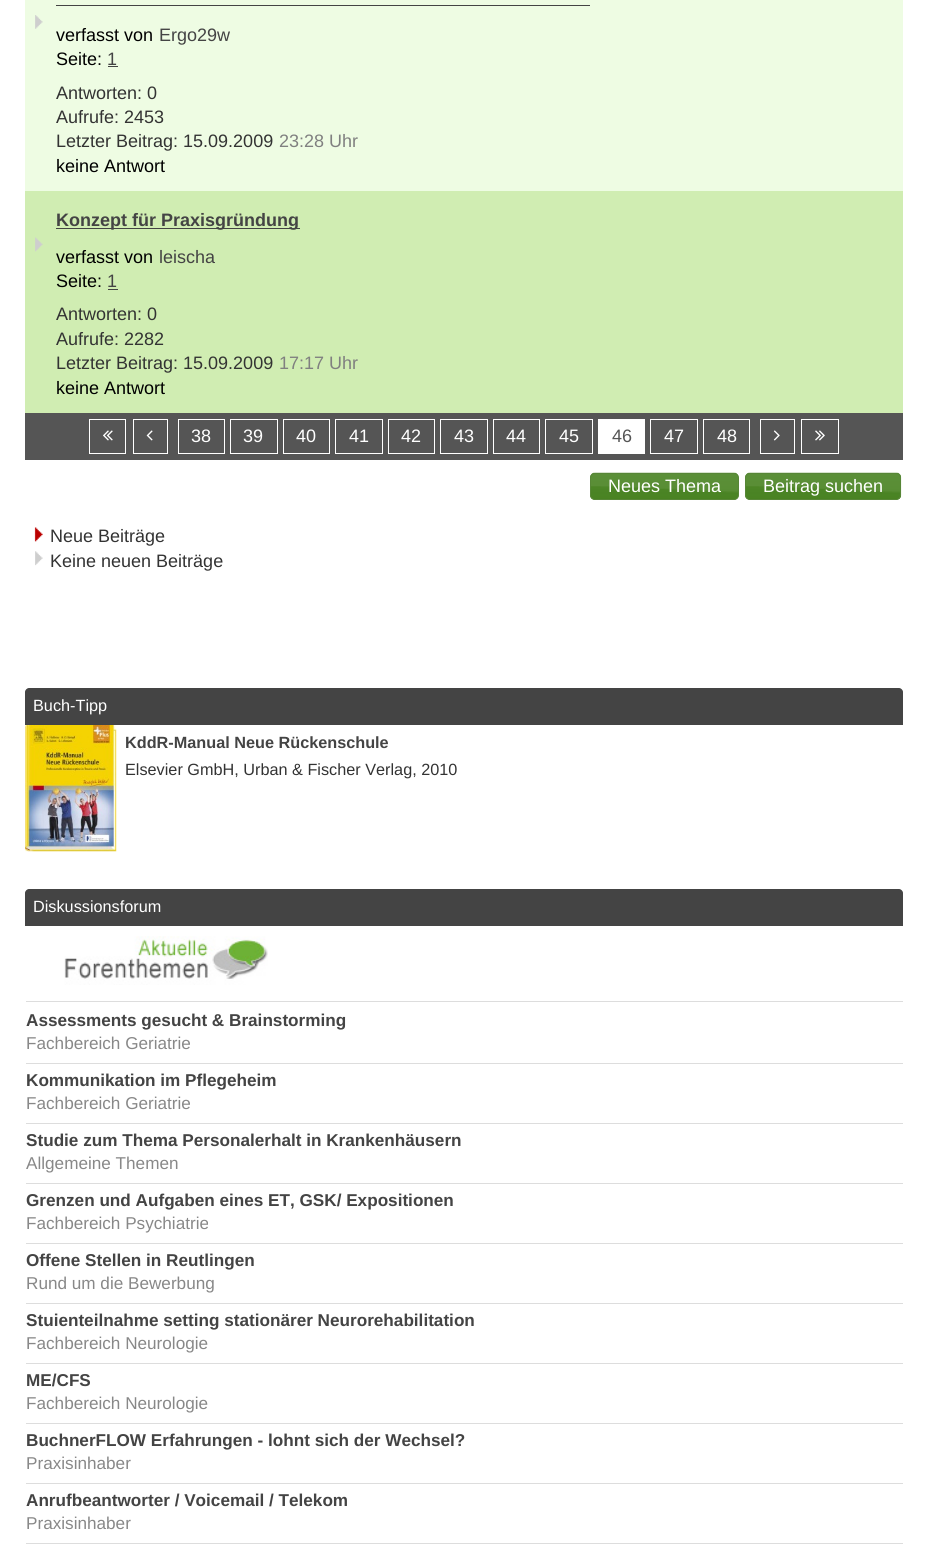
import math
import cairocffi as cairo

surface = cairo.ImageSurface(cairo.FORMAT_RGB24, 927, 1546)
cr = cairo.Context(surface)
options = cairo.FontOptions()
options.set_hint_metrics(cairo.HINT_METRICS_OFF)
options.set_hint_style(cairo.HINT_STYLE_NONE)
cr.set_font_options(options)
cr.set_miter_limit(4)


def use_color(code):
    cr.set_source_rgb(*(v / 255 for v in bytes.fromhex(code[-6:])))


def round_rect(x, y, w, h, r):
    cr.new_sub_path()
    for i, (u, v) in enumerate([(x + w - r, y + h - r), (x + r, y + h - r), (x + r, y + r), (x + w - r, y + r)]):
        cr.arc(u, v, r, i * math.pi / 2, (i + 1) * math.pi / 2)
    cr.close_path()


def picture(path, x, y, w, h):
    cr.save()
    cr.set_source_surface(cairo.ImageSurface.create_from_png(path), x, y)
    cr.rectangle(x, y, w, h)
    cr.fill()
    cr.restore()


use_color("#ffffff")
cr.paint()
use_color("#eefce3")
cr.rectangle(25, 0, 878, 191)
cr.fill()
picture("img1.png", 35, 15, 8, 14)
use_color("#444444")
cr.rectangle(56, 5, 534, 1)
cr.fill()
cr.select_font_face("Liberation Sans")
cr.set_font_size(18)
use_color("#000000")
cr.move_to(56, 41)
cr.show_text("verfasst von")
use_color("#444444")
cr.move_to(159, 41)
cr.show_text("Ergo29w")
use_color("#000000")
cr.move_to(56, 65)
cr.show_text("Seite:")
use_color("#444444")
cr.move_to(107, 65)
cr.show_text("1")
cr.rectangle(108, 66, 10, 1)
cr.fill()
use_color("#333333")
cr.move_to(56, 99)
cr.show_text("Antworten: 0")
cr.move_to(56, 123)
cr.show_text("Aufrufe: 2453")
cr.move_to(56, 147)
cr.show_text("Letzter Beitrag: 15.09.2009")
use_color("#808080")
cr.move_to(279, 147)
cr.show_text("23:28 Uhr")
use_color("#000000")
cr.move_to(56, 172)
cr.show_text("keine Antwort")
use_color("#d0edb2")
cr.rectangle(25, 191, 878, 222)
cr.fill()
picture("img2.png", 35, 237, 8, 15)
use_color("#444444")
cr.rectangle(56, 228, 244, 1)
cr.fill()
cr.select_font_face("Liberation Sans", cairo.FONT_SLANT_NORMAL, cairo.FONT_WEIGHT_BOLD)
cr.move_to(56, 226)
cr.show_text("Konzept für Praxisgründung")
cr.select_font_face("Liberation Sans")
use_color("#000000")
cr.move_to(56, 263)
cr.show_text("verfasst von")
use_color("#444444")
cr.move_to(159, 263)
cr.show_text("leischa")
use_color("#000000")
cr.move_to(56, 287)
cr.show_text("Seite:")
use_color("#444444")
cr.move_to(107, 287)
cr.show_text("1")
cr.rectangle(108, 289, 10, 1)
cr.fill()
use_color("#333333")
cr.move_to(56, 320)
cr.show_text("Antworten: 0")
cr.move_to(56, 345)
cr.show_text("Aufrufe: 2282")
cr.move_to(56, 369)
cr.show_text("Letzter Beitrag: 15.09.2009")
use_color("#808080")
cr.move_to(279, 369)
cr.show_text("17:17 Uhr")
use_color("#000000")
cr.move_to(56, 394)
cr.show_text("keine Antwort")
use_color("#555555")
cr.rectangle(25, 413, 878, 47)
cr.fill()
cr.rectangle(89.5, 419.5, 36, 34)
use_color("#ffffff")
cr.set_line_width(1)
cr.stroke()
picture("img3.png", 103, 430, 10, 11)
cr.rectangle(133.5, 419.5, 34, 34)
cr.stroke()
picture("img4.png", 146, 430, 7, 11)
cr.rectangle(178.5, 419.5, 46, 34)
cr.stroke()
cr.move_to(191, 442)
cr.show_text("38")
cr.rectangle(230.5, 419.5, 47, 34)
cr.stroke()
cr.move_to(243, 442)
cr.show_text("39")
cr.rectangle(283.5, 419.5, 46, 34)
cr.stroke()
cr.move_to(296, 442)
cr.show_text("40")
cr.rectangle(335.5, 419.5, 47, 34)
cr.stroke()
cr.move_to(349, 442)
cr.show_text("41")
cr.rectangle(388.5, 419.5, 46, 34)
cr.stroke()
cr.move_to(401, 442)
cr.show_text("42")
cr.rectangle(440.5, 419.5, 47, 34)
cr.stroke()
cr.move_to(454, 442)
cr.show_text("43")
cr.rectangle(493.5, 419.5, 46, 34)
cr.stroke()
cr.move_to(506, 442)
cr.show_text("44")
cr.rectangle(545.5, 419.5, 47, 34)
cr.stroke()
cr.move_to(559, 442)
cr.show_text("45")
cr.rectangle(598, 419, 47, 35)
cr.fill()
use_color("#555555")
cr.move_to(612, 442)
cr.show_text("46")
cr.rectangle(650.5, 419.5, 47, 34)
use_color("#ffffff")
cr.stroke()
cr.move_to(664, 442)
cr.show_text("47")
cr.rectangle(703.5, 419.5, 46, 34)
cr.stroke()
cr.move_to(717, 442)
cr.show_text("48")
cr.rectangle(760.5, 419.5, 34, 34)
cr.stroke()
picture("img5.png", 773, 430, 7, 11)
cr.rectangle(801.5, 419.5, 37, 34)
cr.stroke()
picture("img6.png", 815, 430, 10, 11)
picture("img7.png", 590, 472, 149, 28)
round_rect(590.5, 473.5, 148, 26, 4.5)
use_color("#578637")
cr.stroke()
use_color("#ffffff")
cr.move_to(608, 492)
cr.show_text("Neues Thema")
picture("img8.png", 745, 472, 157, 28)
round_rect(745.5, 473.5, 155, 26, 4.5)
use_color("#578637")
cr.stroke()
use_color("#ffffff")
cr.move_to(763, 492)
cr.show_text("Beitrag suchen")
picture("img9.png", 34, 527, 9, 15)
use_color("#333333")
cr.move_to(50, 542)
cr.show_text("Neue Beiträge")
picture("img10.png", 35, 551, 8, 15)
cr.move_to(50, 567)
cr.show_text("Keine neuen Beiträge")
use_color("#444444")
cr.new_path()
cr.move_to(29, 688)
cr.line_to(899, 688)
cr.curve_to(901, 688, 903, 690, 903, 692)
cr.line_to(903, 725)
cr.line_to(25, 725)
cr.line_to(25, 692)
cr.curve_to(25, 690, 27, 688, 29, 688)
cr.close_path()
cr.fill()
cr.set_font_size(16.25)
use_color("#ffffff")
cr.move_to(33, 711)
cr.show_text("Buch-Tipp")
picture("img11.png", 25, 725, 92, 127)
cr.select_font_face("Liberation Sans", cairo.FONT_SLANT_NORMAL, cairo.FONT_WEIGHT_BOLD)
use_color("#444444")
cr.move_to(125, 748)
cr.show_text("KddR-Manual Neue Rückenschule")
cr.select_font_face("Liberation Sans")
use_color("#333333")
cr.move_to(125, 775)
cr.show_text("Elsevier GmbH, Urban & Fischer Verlag, 2010")
use_color("#444444")
cr.new_path()
cr.move_to(29, 889)
cr.line_to(899, 889)
cr.curve_to(901, 889, 903, 891, 903, 893)
cr.line_to(903, 926)
cr.line_to(25, 926)
cr.line_to(25, 893)
cr.curve_to(25, 891, 27, 889, 29, 889)
cr.close_path()
cr.fill()
use_color("#ffffff")
cr.move_to(33, 912)
cr.show_text("Diskussionsforum")
picture("img12.png", 64, 936, 204, 49)
use_color("#dddddd")
cr.rectangle(26, 1001, 877, 1)
cr.fill()
cr.select_font_face("Liberation Sans", cairo.FONT_SLANT_NORMAL, cairo.FONT_WEIGHT_BOLD)
cr.set_font_size(17.15)
use_color("#444444")
cr.move_to(26, 1026)
cr.show_text("Assessments gesucht & Brainstorming")
cr.select_font_face("Liberation Sans")
use_color("#888888")
cr.move_to(26, 1049)
cr.show_text("Fachbereich Geriatrie")
use_color("#dddddd")
cr.rectangle(26, 1063, 877, 1)
cr.fill()
cr.select_font_face("Liberation Sans", cairo.FONT_SLANT_NORMAL, cairo.FONT_WEIGHT_BOLD)
use_color("#444444")
cr.move_to(26, 1086)
cr.show_text("Kommunikation im Pflegeheim")
cr.select_font_face("Liberation Sans")
use_color("#888888")
cr.move_to(26, 1109)
cr.show_text("Fachbereich Geriatrie")
use_color("#dddddd")
cr.rectangle(26, 1123, 877, 1)
cr.fill()
cr.select_font_face("Liberation Sans", cairo.FONT_SLANT_NORMAL, cairo.FONT_WEIGHT_BOLD)
use_color("#444444")
cr.move_to(26, 1146)
cr.show_text("Studie zum Thema Personalerhalt in Krankenhäusern")
cr.select_font_face("Liberation Sans")
use_color("#888888")
cr.move_to(26, 1169)
cr.show_text("Allgemeine Themen")
use_color("#dddddd")
cr.rectangle(26, 1183, 877, 1)
cr.fill()
cr.select_font_face("Liberation Sans", cairo.FONT_SLANT_NORMAL, cairo.FONT_WEIGHT_BOLD)
use_color("#444444")
cr.move_to(26, 1206)
cr.show_text("Grenzen und Aufgaben eines ET, GSK/ Expositionen")
cr.select_font_face("Liberation Sans")
use_color("#888888")
cr.move_to(26, 1229)
cr.show_text("Fachbereich Psychiatrie")
use_color("#dddddd")
cr.rectangle(26, 1243, 877, 1)
cr.fill()
cr.select_font_face("Liberation Sans", cairo.FONT_SLANT_NORMAL, cairo.FONT_WEIGHT_BOLD)
use_color("#444444")
cr.move_to(26, 1266)
cr.show_text("Offene Stellen in Reutlingen")
cr.select_font_face("Liberation Sans")
use_color("#888888")
cr.move_to(26, 1289)
cr.show_text("Rund um die Bewerbung")
use_color("#dddddd")
cr.rectangle(26, 1303, 877, 1)
cr.fill()
cr.select_font_face("Liberation Sans", cairo.FONT_SLANT_NORMAL, cairo.FONT_WEIGHT_BOLD)
use_color("#444444")
cr.move_to(26, 1326)
cr.show_text("Stuienteilnahme setting stationärer Neurorehabilitation")
cr.select_font_face("Liberation Sans")
use_color("#888888")
cr.move_to(26, 1349)
cr.show_text("Fachbereich Neurologie")
use_color("#dddddd")
cr.rectangle(26, 1363, 877, 1)
cr.fill()
cr.select_font_face("Liberation Sans", cairo.FONT_SLANT_NORMAL, cairo.FONT_WEIGHT_BOLD)
use_color("#444444")
cr.move_to(26, 1386)
cr.show_text("ME/CFS")
cr.select_font_face("Liberation Sans")
use_color("#888888")
cr.move_to(26, 1409)
cr.show_text("Fachbereich Neurologie")
use_color("#dddddd")
cr.rectangle(26, 1423, 877, 1)
cr.fill()
cr.select_font_face("Liberation Sans", cairo.FONT_SLANT_NORMAL, cairo.FONT_WEIGHT_BOLD)
use_color("#444444")
cr.move_to(26, 1446)
cr.show_text("BuchnerFLOW Erfahrungen - lohnt sich der Wechsel?")
cr.select_font_face("Liberation Sans")
use_color("#888888")
cr.move_to(26, 1469)
cr.show_text("Praxisinhaber")
use_color("#dddddd")
cr.rectangle(26, 1483, 877, 1)
cr.fill()
cr.select_font_face("Liberation Sans", cairo.FONT_SLANT_NORMAL, cairo.FONT_WEIGHT_BOLD)
use_color("#444444")
cr.move_to(26, 1506)
cr.show_text("Anrufbeantworter / Voicemail / Telekom")
cr.select_font_face("Liberation Sans")
use_color("#888888")
cr.move_to(26, 1529)
cr.show_text("Praxisinhaber")
use_color("#dddddd")
cr.rectangle(26, 1543, 877, 1)
cr.fill()
surface.write_to_png("result.png")
